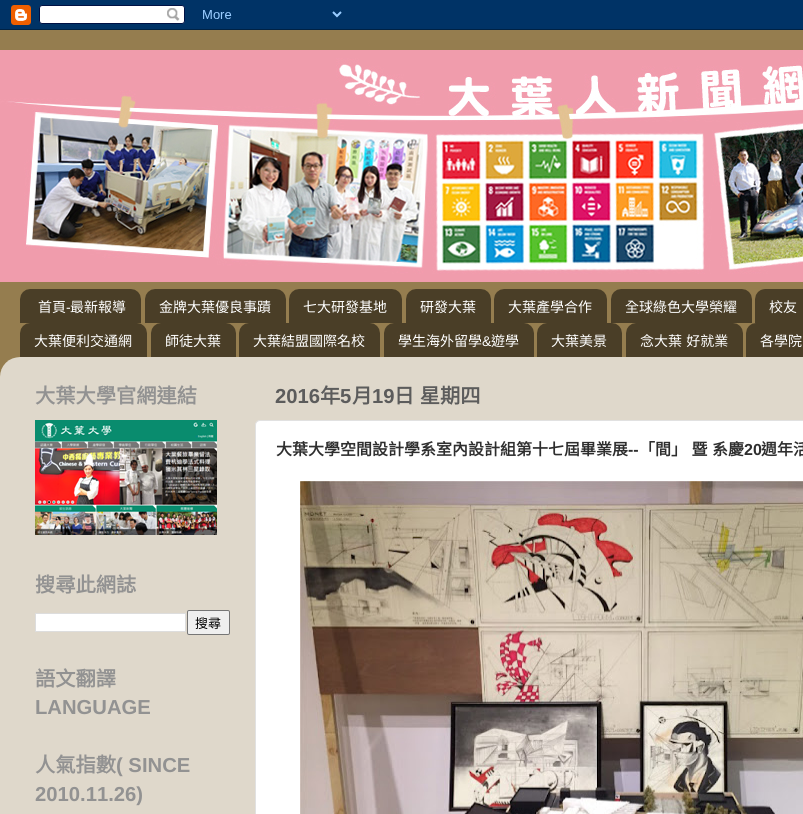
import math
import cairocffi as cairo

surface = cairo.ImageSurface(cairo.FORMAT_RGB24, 803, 814)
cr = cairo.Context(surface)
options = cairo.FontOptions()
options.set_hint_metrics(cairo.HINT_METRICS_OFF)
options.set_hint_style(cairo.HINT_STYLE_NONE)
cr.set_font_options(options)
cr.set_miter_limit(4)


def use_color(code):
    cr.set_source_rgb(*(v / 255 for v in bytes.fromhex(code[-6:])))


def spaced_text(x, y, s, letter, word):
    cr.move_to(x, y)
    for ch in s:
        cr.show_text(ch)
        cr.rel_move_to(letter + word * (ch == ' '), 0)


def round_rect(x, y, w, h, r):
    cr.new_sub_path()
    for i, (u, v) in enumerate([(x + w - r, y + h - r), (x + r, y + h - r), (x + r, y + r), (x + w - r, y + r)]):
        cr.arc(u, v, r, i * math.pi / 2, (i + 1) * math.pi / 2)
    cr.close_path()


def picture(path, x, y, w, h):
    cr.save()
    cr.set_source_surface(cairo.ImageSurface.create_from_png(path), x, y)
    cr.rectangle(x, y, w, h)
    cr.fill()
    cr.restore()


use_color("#957d4f")
cr.paint()
picture("img1.png", 0, 0, 803, 30)
picture("img2.png", 0, 50, 803, 232)
picture("img3.png", 20, 289, 121, 34)
cr.select_font_face("Noto Sans CJK TC")
cr.set_font_size(14)
use_color("#ffffff")
cr.move_to(38, 312)
cr.show_text("首頁")
cr.select_font_face("Liberation Sans")
cr.move_to(66, 312)
cr.show_text("-")
cr.select_font_face("Noto Sans CJK TC")
cr.move_to(70, 312)
cr.show_text("最新報導")
picture("img4.png", 145, 289, 141, 34)
cr.move_to(159, 312)
cr.show_text("金牌大葉優良事蹟")
picture("img5.png", 289, 289, 113, 34)
cr.move_to(303, 312)
cr.show_text("七大研發基地")
picture("img6.png", 406, 289, 85, 34)
cr.move_to(420, 312)
cr.show_text("研發大葉")
picture("img5.png", 494, 289, 113, 34)
cr.move_to(508, 312)
cr.show_text("大葉產學合作")
picture("img7.png", 611, 289, 141, 34)
cr.move_to(625, 312)
cr.show_text("全球綠色大學榮耀")
picture("img8.png", 755, 289, 48, 34)
cr.move_to(769, 312)
cr.show_text("校友")
picture("img9.png", 20, 323, 127, 34)
cr.move_to(34, 346)
cr.show_text("大葉便利交通網")
picture("img10.png", 151, 323, 85, 34)
cr.move_to(165, 346)
cr.show_text("師徒大葉")
picture("img4.png", 239, 323, 141, 34)
cr.move_to(253, 346)
cr.show_text("大葉結盟國際名校")
picture("img11.png", 384, 323, 150, 34)
cr.move_to(398, 346)
cr.show_text("學生海外留學")
cr.select_font_face("Liberation Sans")
cr.move_to(482, 346)
cr.show_text("&")
cr.select_font_face("Noto Sans CJK TC")
cr.move_to(491, 346)
cr.show_text("遊學")
picture("img6.png", 537, 323, 85, 34)
cr.move_to(551, 346)
cr.show_text("大葉美景")
picture("img12.png", 626, 323, 117, 34)
spaced_text(640, 346, "念大葉 好就業", 0, 1)
picture("img13.png", 746, 323, 57, 34)
cr.move_to(760, 346)
cr.show_text("各學院")
picture("img14.png", 0, 357, 803, 457)
cr.select_font_face("Noto Sans CJK TC", cairo.FONT_SLANT_NORMAL, cairo.FONT_WEIGHT_BOLD)
cr.set_font_size(20.25)
use_color("#929292")
cr.move_to(35, 403)
cr.show_text("大葉大學官網連結")
picture("img15.png", 35, 420, 182, 115)
cr.move_to(35, 592)
cr.show_text("搜尋此網誌")
use_color("#ffffff")
cr.rectangle(35.5, 613.5, 150, 18)
cr.fill_preserve()
use_color("#dddddd")
cr.set_line_width(1)
cr.stroke()
use_color("#efefef")
round_rect(187.5, 610.5, 42, 24, 1.5)
cr.fill_preserve()
use_color("#767676")
cr.stroke()
cr.select_font_face("Noto Sans CJK TC")
cr.set_font_size(13)
use_color("#000000")
cr.move_to(195, 628)
cr.show_text("搜尋")
cr.select_font_face("Noto Sans CJK TC", cairo.FONT_SLANT_NORMAL, cairo.FONT_WEIGHT_BOLD)
cr.set_font_size(20.25)
use_color("#929292")
cr.move_to(35, 686)
cr.show_text("語文翻譯")
cr.select_font_face("Liberation Sans", cairo.FONT_SLANT_NORMAL, cairo.FONT_WEIGHT_BOLD)
cr.move_to(35, 714)
cr.show_text("LANGUAGE")
cr.select_font_face("Noto Sans CJK TC", cairo.FONT_SLANT_NORMAL, cairo.FONT_WEIGHT_BOLD)
cr.move_to(35, 772)
cr.show_text("人氣指數")
cr.select_font_face("Liberation Sans", cairo.FONT_SLANT_NORMAL, cairo.FONT_WEIGHT_BOLD)
cr.move_to(116, 772)
cr.show_text("( SINCE")
cr.move_to(35, 801)
cr.show_text("2010.11.26)")
use_color("#5c5c5c")
cr.move_to(275, 403)
cr.show_text("2016")
cr.select_font_face("Noto Sans CJK TC", cairo.FONT_SLANT_NORMAL, cairo.FONT_WEIGHT_BOLD)
cr.move_to(320, 403)
cr.show_text("年")
cr.select_font_face("Liberation Sans", cairo.FONT_SLANT_NORMAL, cairo.FONT_WEIGHT_BOLD)
cr.move_to(340, 403)
cr.show_text("5")
cr.select_font_face("Noto Sans CJK TC", cairo.FONT_SLANT_NORMAL, cairo.FONT_WEIGHT_BOLD)
cr.move_to(352, 403)
cr.show_text("月")
cr.select_font_face("Liberation Sans", cairo.FONT_SLANT_NORMAL, cairo.FONT_WEIGHT_BOLD)
cr.move_to(372, 403)
cr.show_text("19")
cr.select_font_face("Noto Sans CJK TC", cairo.FONT_SLANT_NORMAL, cairo.FONT_WEIGHT_BOLD)
spaced_text(394, 403, "日 星期四", 0, 1)
use_color("#ffffff")
round_rect(255.5, 420.5, 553, 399, 4.5)
cr.fill_preserve()
use_color("#e1e1e1")
cr.stroke()
cr.set_font_size(16)
use_color("#2e2e2e")
cr.move_to(276, 455)
cr.show_text("大葉大學空間設計學系室內設計組第十七屆畢業展")
cr.select_font_face("Liberation Sans", cairo.FONT_SLANT_NORMAL, cairo.FONT_WEIGHT_BOLD)
cr.move_to(628, 455)
cr.show_text("--")
cr.select_font_face("Noto Sans CJK TC", cairo.FONT_SLANT_NORMAL, cairo.FONT_WEIGHT_BOLD)
spaced_text(639, 455, "「間」 暨", 0, 1)
cr.move_to(712, 455)
cr.show_text("系慶")
cr.select_font_face("Liberation Sans", cairo.FONT_SLANT_NORMAL, cairo.FONT_WEIGHT_BOLD)
cr.move_to(744, 455)
cr.show_text("20")
cr.select_font_face("Noto Sans CJK TC", cairo.FONT_SLANT_NORMAL, cairo.FONT_WEIGHT_BOLD)
cr.move_to(761, 455)
cr.show_text("週年活")
picture("img16.png", 300, 481, 503, 333)
surface.write_to_png("result.png")
